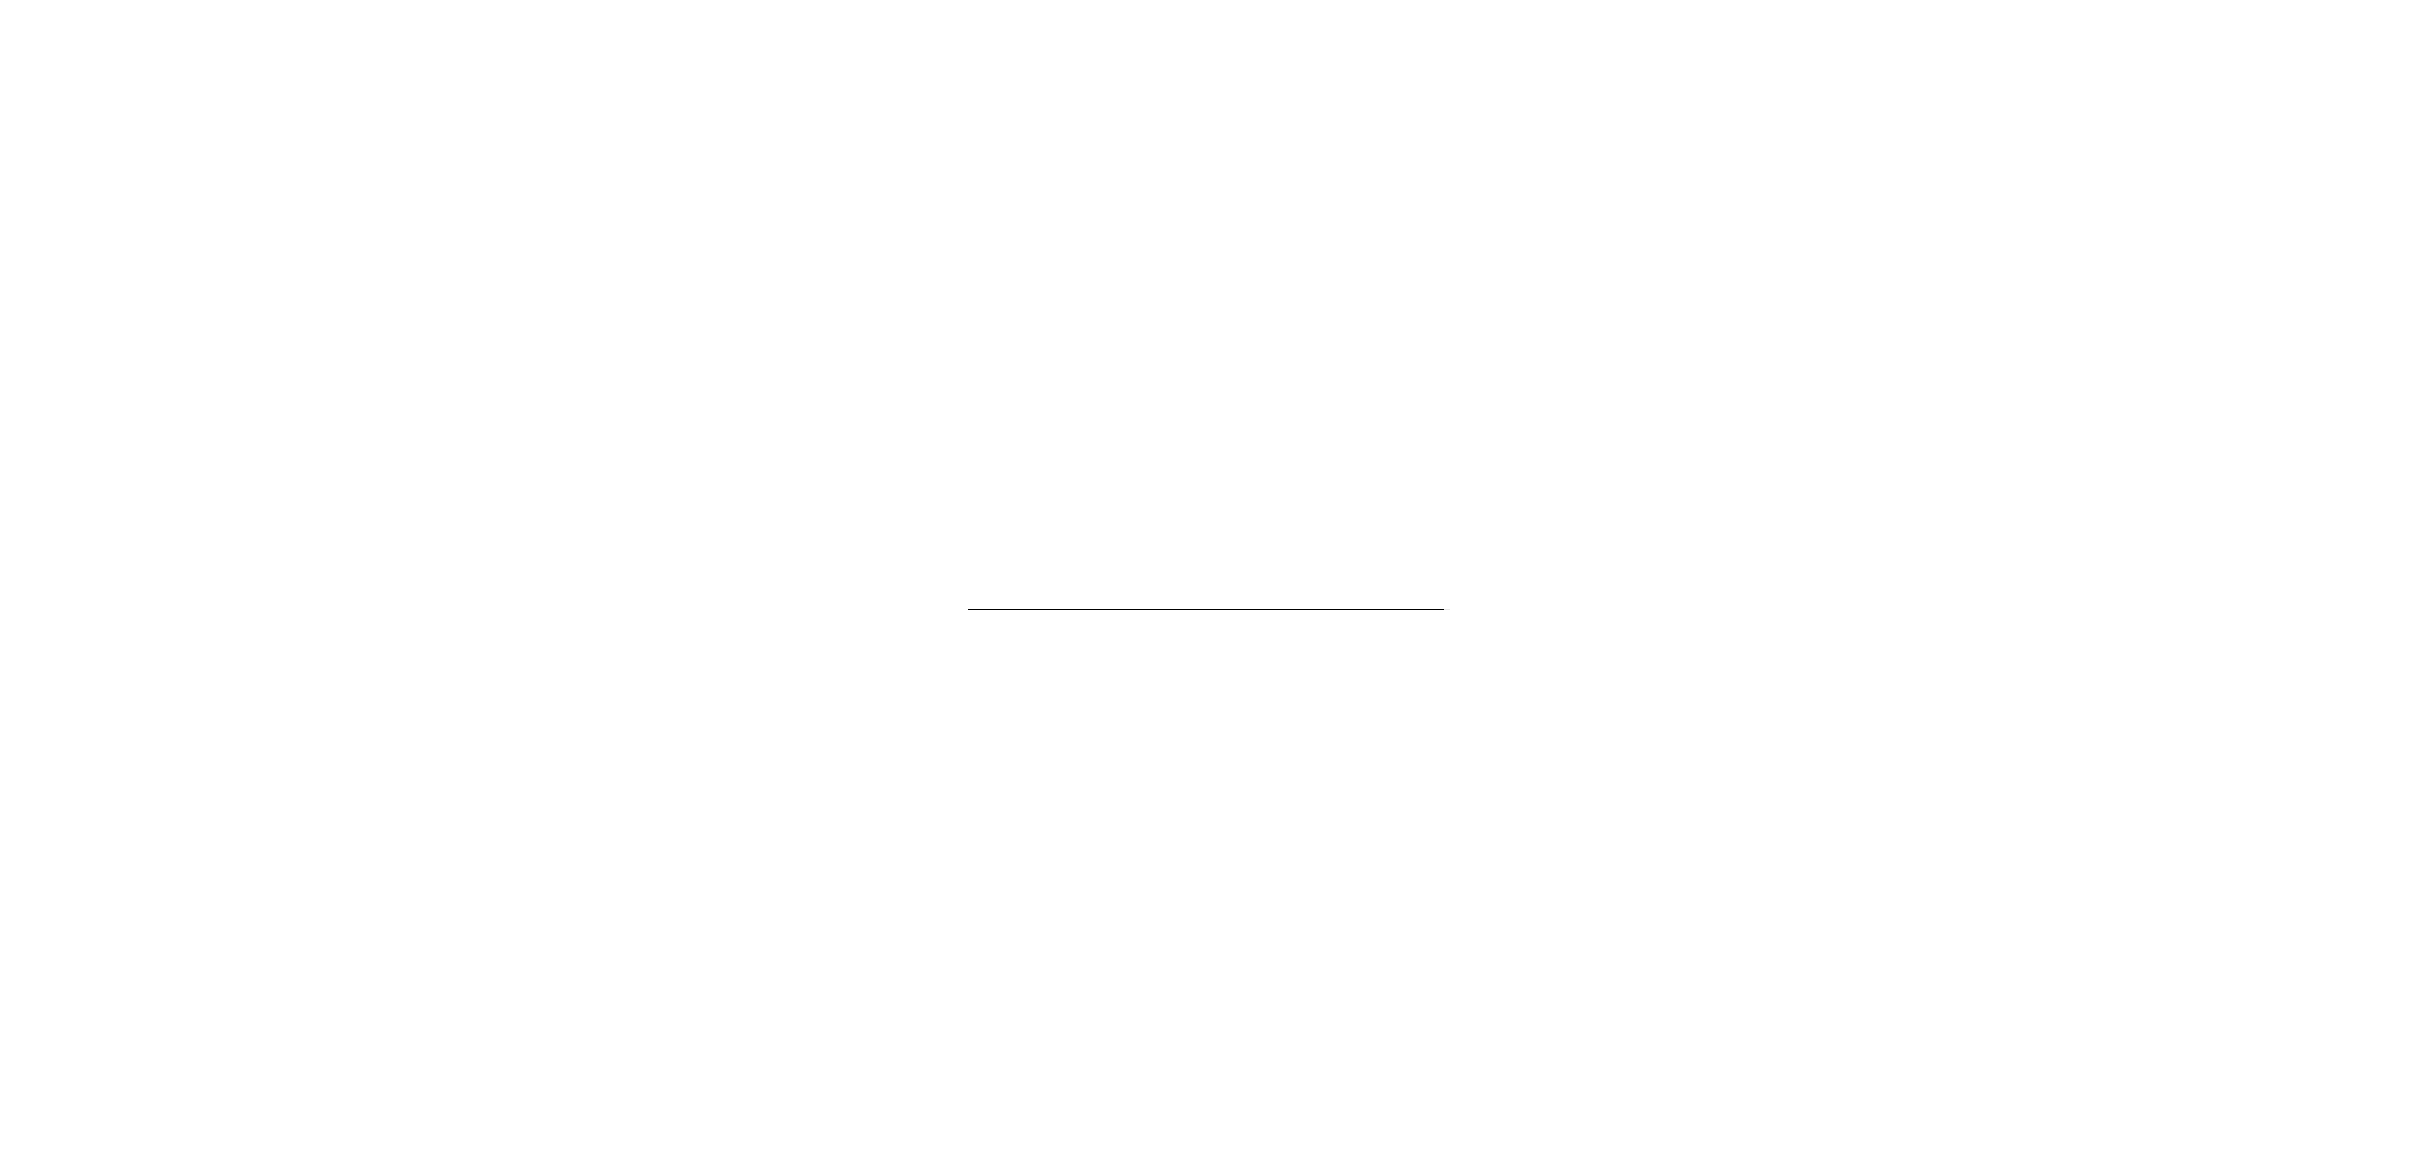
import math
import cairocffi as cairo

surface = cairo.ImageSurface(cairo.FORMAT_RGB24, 2417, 1167)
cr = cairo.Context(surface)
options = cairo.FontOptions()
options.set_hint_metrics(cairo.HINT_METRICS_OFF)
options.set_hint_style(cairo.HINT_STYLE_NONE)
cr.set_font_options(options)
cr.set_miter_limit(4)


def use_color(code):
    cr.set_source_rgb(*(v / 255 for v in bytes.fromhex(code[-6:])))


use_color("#ffffff")
cr.paint()
use_color("#e6e6e6")
cr.rectangle(1444, 609, 6, 1)
cr.fill()
use_color("#000000")
cr.rectangle(968, 609, 476, 1)
cr.fill()
surface.write_to_png("result.png")
